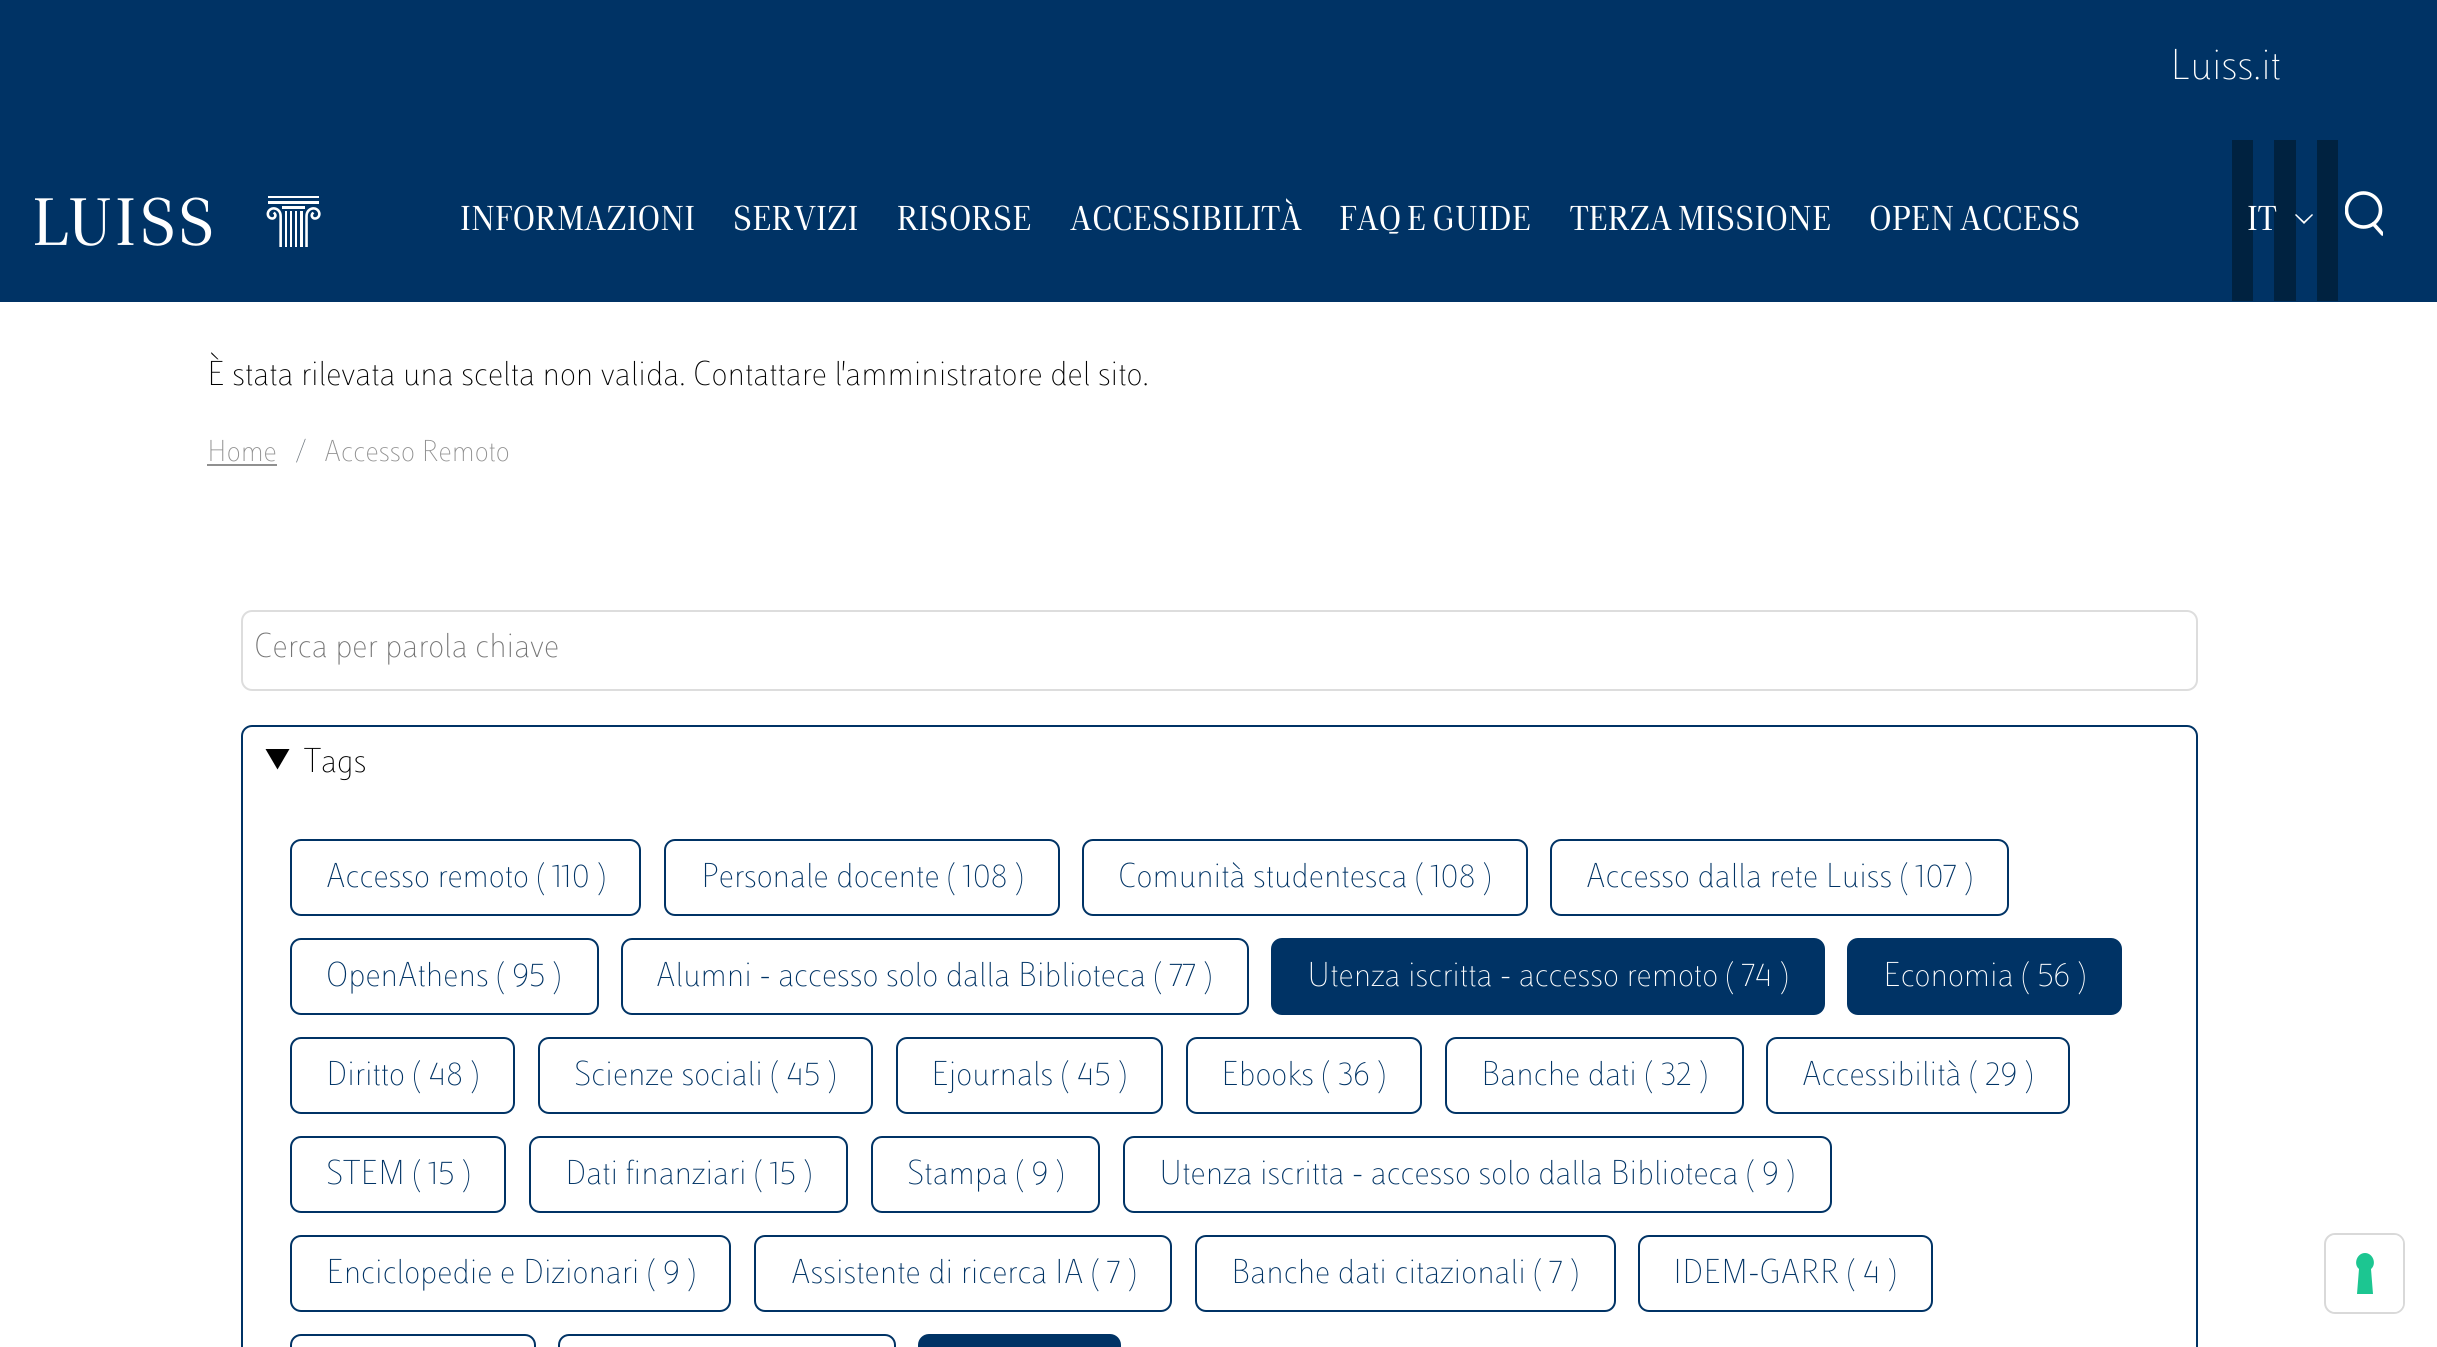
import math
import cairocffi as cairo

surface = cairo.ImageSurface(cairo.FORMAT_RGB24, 2437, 1347)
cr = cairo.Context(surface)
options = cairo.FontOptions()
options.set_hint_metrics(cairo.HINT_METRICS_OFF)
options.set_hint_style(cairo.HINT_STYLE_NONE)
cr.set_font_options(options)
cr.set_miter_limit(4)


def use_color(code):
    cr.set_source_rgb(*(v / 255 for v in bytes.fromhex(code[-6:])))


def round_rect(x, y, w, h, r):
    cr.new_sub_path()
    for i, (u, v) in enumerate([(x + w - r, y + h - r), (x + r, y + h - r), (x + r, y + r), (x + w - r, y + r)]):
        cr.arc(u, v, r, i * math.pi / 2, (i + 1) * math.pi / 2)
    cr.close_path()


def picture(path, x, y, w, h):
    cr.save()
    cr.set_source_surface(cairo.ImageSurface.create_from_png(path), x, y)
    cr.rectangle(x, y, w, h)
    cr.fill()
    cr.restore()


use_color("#ffffff")
cr.paint()
use_color("#003365")
cr.rectangle(0, 0, 2437, 302)
cr.fill()
cr.select_font_face("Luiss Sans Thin")
cr.set_font_size(45)
use_color("#ffffff")
cr.move_to(2170, 79)
cr.show_text("Luiss.it")
picture("img1.png", 35, 196, 286, 51)
cr.select_font_face("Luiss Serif")
cr.set_font_size(36)
cr.move_to(460, 230)
cr.show_text("INFORMAZIONI")
cr.move_to(733, 230)
cr.show_text("SERVIZI")
cr.move_to(897, 230)
cr.show_text("RISORSE")
cr.move_to(1070, 230)
cr.show_text("ACCESSIBILITÀ")
cr.move_to(1339, 230)
cr.show_text("FAQ E GUIDE")
cr.move_to(1570, 230)
cr.show_text("TERZA MISSIONE")
cr.move_to(1869, 230)
cr.show_text("OPEN ACCESS")
use_color("#002240")
cr.rectangle(2232, 140, 21, 161)
cr.fill()
cr.rectangle(2274, 140, 22, 161)
cr.fill()
use_color("#ffffff")
cr.move_to(2247, 230)
cr.show_text("IT")
cr.new_path()
cr.move_to(2295, 215)
cr.line_to(2304, 224)
cr.line_to(2313, 215)
cr.line_to(2312, 214)
cr.line_to(2304, 221.5)
cr.line_to(2296, 214)
cr.close_path()
cr.fill()
cr.save()
cr.rectangle(2345, 191, 38, 45)
cr.clip()
cr.arc(2363.5, 210, 17, 0, 2 * math.pi)
cr.set_line_width(3.6)
cr.stroke()
cr.new_path()
cr.move_to(2382.5, 234)
cr.line_to(2373.5, 224)
cr.set_line_cap(cairo.LINE_CAP_ROUND)
cr.set_line_join(cairo.LINE_JOIN_ROUND)
cr.stroke()
cr.restore()
use_color("#002240")
cr.rectangle(2317, 140, 21, 161)
cr.fill()
cr.select_font_face("Luiss Sans Thin")
use_color("#010101")
cr.move_to(207, 385)
cr.show_text("È stata rilevata una scelta non valida. Contattare l'amministratore del sito.")
cr.set_font_size(31.5)
use_color("#909090")
cr.move_to(207, 461)
cr.show_text("Home")
cr.rectangle(207, 464, 70, 2)
cr.fill()
use_color("#6c757d")
cr.move_to(295, 461)
cr.show_text("/")
use_color("#909090")
cr.move_to(324, 461)
cr.show_text("Accesso Remoto")
round_rect(242, 611, 1955, 79, 10)
use_color("#dddddd")
cr.stroke()
cr.set_font_size(36)
use_color("#757575")
cr.move_to(254, 657)
cr.show_text("Cerca per parola chiave")
round_rect(242, 726, 1955, 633, 10)
use_color("#003365")
cr.stroke()
use_color("#010101")
cr.new_path()
cr.move_to(265.5, 749)
cr.line_to(289.5, 749)
cr.line_to(277.5, 769.5)
cr.close_path()
cr.fill()
cr.move_to(304, 772)
cr.show_text("Tags")
round_rect(291, 840, 349, 75, 10)
use_color("#003365")
cr.stroke()
cr.move_to(326, 887)
cr.show_text("Accesso remoto ( 110 )")
round_rect(665, 840, 394, 75, 10)
cr.stroke()
cr.move_to(701, 887)
cr.show_text("Personale docente ( 108 )")
round_rect(1083, 840, 444, 75, 10)
cr.stroke()
cr.move_to(1118, 887)
cr.show_text("Comunità studentesca ( 108 )")
round_rect(1551, 840, 457, 75, 10)
cr.stroke()
cr.move_to(1586, 887)
cr.show_text("Accesso dalla rete Luiss ( 107 )")
round_rect(291, 939, 307, 75, 10)
cr.stroke()
cr.move_to(326, 986)
cr.show_text("OpenAthens ( 95 )")
round_rect(622, 939, 626, 75, 10)
cr.stroke()
cr.move_to(656, 986)
cr.show_text("Alumni - accesso solo dalla Biblioteca ( 77 )")
round_rect(1272, 939, 552, 75, 10)
cr.fill_preserve()
cr.stroke()
use_color("#ffffff")
cr.move_to(1307, 986)
cr.show_text("Utenza iscritta - accesso remoto ( 74 )")
use_color("#003365")
round_rect(1848, 939, 273, 75, 10)
cr.fill_preserve()
cr.stroke()
use_color("#ffffff")
cr.move_to(1883, 986)
cr.show_text("Economia ( 56 )")
round_rect(291, 1038, 223, 75, 10)
use_color("#003365")
cr.stroke()
cr.move_to(326, 1085)
cr.show_text("Diritto ( 48 )")
round_rect(539, 1038, 333, 75, 10)
cr.stroke()
cr.move_to(574, 1085)
cr.show_text("Scienze sociali ( 45 )")
round_rect(897, 1038, 265, 75, 10)
cr.stroke()
cr.move_to(931, 1085)
cr.show_text("Ejournals ( 45 )")
round_rect(1187, 1038, 234, 75, 10)
cr.stroke()
cr.move_to(1221, 1085)
cr.show_text("Ebooks ( 36 )")
round_rect(1446, 1038, 297, 75, 10)
cr.stroke()
cr.move_to(1481, 1085)
cr.show_text("Banche dati ( 32 )")
round_rect(1767, 1038, 302, 75, 10)
cr.stroke()
cr.move_to(1802, 1085)
cr.show_text("Accessibilità ( 29 )")
round_rect(291, 1137, 214, 75, 10)
cr.stroke()
cr.move_to(326, 1184)
cr.show_text("STEM ( 15 )")
round_rect(530, 1137, 317, 75, 10)
cr.stroke()
cr.move_to(565, 1184)
cr.show_text("Dati finanziari ( 15 )")
round_rect(872, 1137, 227, 75, 10)
cr.stroke()
cr.move_to(907, 1184)
cr.show_text("Stampa ( 9 )")
round_rect(1124, 1137, 707, 75, 10)
cr.stroke()
cr.move_to(1159, 1184)
cr.show_text("Utenza iscritta - accesso solo dalla Biblioteca ( 9 )")
round_rect(291, 1236, 439, 75, 10)
cr.stroke()
cr.move_to(326, 1283)
cr.show_text("Enciclopedie e Dizionari ( 9 )")
round_rect(755, 1236, 416, 75, 10)
cr.stroke()
cr.move_to(791, 1283)
cr.show_text("Assistente di ricerca IA ( 7 )")
round_rect(1196, 1236, 419, 75, 10)
cr.stroke()
cr.move_to(1231, 1283)
cr.show_text("Banche dati citazionali ( 7 )")
round_rect(1639, 1236, 293, 75, 10)
cr.stroke()
cr.move_to(1673, 1283)
cr.show_text("IDEM-GARR ( 4 )")
round_rect(291, 1335, 244, 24, 10)
cr.stroke()
round_rect(559, 1335, 336, 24, 10)
cr.stroke()
round_rect(919, 1335, 201, 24, 10)
cr.fill_preserve()
cr.stroke()
round_rect(2325, 1234, 79, 79, 10)
use_color("#d9d9d9")
cr.stroke()
use_color("#ffffff")
round_rect(2327, 1235, 76, 77, 9)
cr.fill()
use_color("#1cc691")
cr.set_fill_rule(cairo.FILL_RULE_EVEN_ODD)
cr.new_path()
cr.move_to(2365, 1253)
cr.curve_to(2373, 1253, 2377, 1264, 2371, 1269)
cr.line_to(2373, 1294)
cr.line_to(2357, 1294)
cr.line_to(2359, 1269)
cr.curve_to(2353, 1264, 2357, 1253, 2365, 1253)
cr.close_path()
cr.fill()
surface.write_to_png("result.png")
